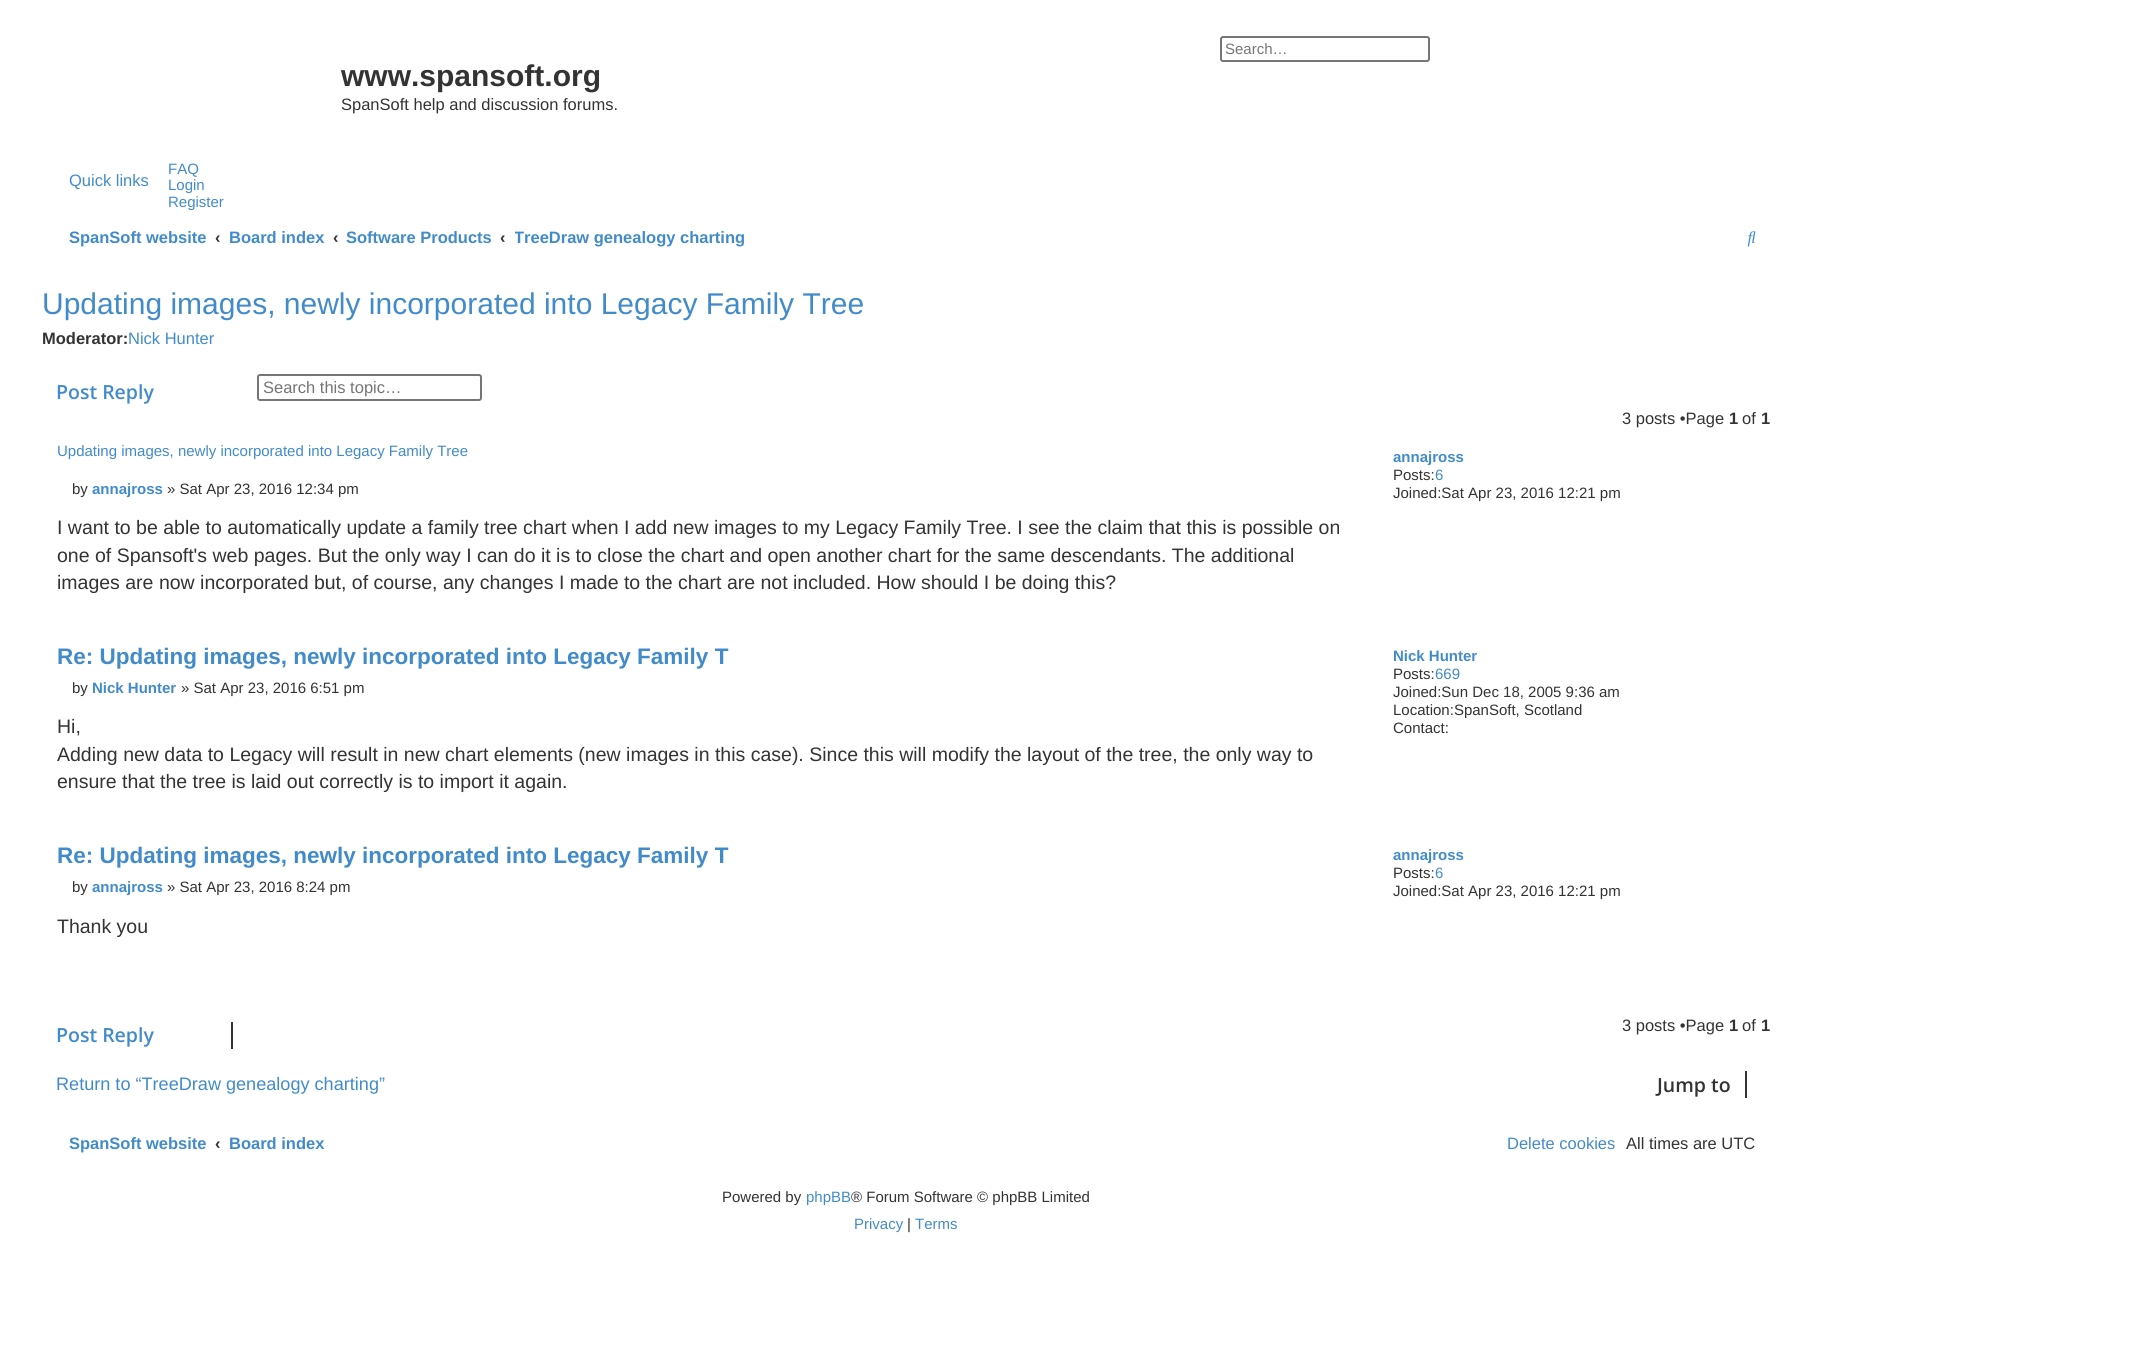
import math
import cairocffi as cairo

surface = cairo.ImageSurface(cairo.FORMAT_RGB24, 2153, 1349)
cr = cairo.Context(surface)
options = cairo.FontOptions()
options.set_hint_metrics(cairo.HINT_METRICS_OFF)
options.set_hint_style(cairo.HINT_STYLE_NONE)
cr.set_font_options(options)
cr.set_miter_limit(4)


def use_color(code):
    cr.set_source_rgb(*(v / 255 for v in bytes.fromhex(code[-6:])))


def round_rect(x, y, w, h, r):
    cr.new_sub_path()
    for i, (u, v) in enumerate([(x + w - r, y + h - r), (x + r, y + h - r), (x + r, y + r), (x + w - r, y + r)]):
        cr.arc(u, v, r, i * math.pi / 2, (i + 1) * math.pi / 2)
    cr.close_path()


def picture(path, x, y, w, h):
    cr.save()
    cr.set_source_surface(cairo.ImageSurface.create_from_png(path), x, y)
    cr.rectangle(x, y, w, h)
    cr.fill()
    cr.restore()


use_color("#ffffff")
cr.paint()
round_rect(1221, 37, 208, 24, 2)
use_color("#767676")
cr.stroke()
cr.select_font_face("Liberation Sans")
cr.set_font_size(15)
use_color("#757575")
cr.move_to(1225, 54)
cr.show_text("Search…")
cr.select_font_face("Liberation Sans", cairo.FONT_SLANT_NORMAL, cairo.FONT_WEIGHT_BOLD)
cr.set_font_size(30)
use_color("#333333")
cr.move_to(341, 86)
cr.show_text("www.spansoft.org")
cr.select_font_face("Liberation Sans")
cr.set_font_size(16.5)
cr.move_to(341, 110)
cr.show_text("SpanSoft help and discussion forums.")
use_color("#428bca")
cr.move_to(69, 186)
cr.show_text("Quick links")
cr.set_font_size(15)
cr.move_to(168, 174)
cr.show_text("FAQ")
cr.move_to(168, 190)
cr.show_text("Login")
cr.move_to(168, 207)
cr.show_text("Register")
cr.select_font_face("Liberation Sans", cairo.FONT_SLANT_NORMAL, cairo.FONT_WEIGHT_BOLD)
cr.set_font_size(16.5)
cr.move_to(69, 243)
cr.show_text("SpanSoft website")
use_color("#333333")
cr.move_to(215, 243)
cr.show_text("‹")
use_color("#428bca")
cr.move_to(229, 243)
cr.show_text("Board index")
use_color("#333333")
cr.move_to(333, 243)
cr.show_text("‹")
use_color("#428bca")
cr.move_to(346, 243)
cr.show_text("Software Products")
use_color("#333333")
cr.move_to(500, 243)
cr.show_text("‹")
cr.save()
cr.rectangle(515, 219, 231, 36)
cr.clip()
use_color("#428bca")
cr.move_to(514, 243)
cr.show_text("TreeDraw genealogy charting")
cr.restore()
picture("img1.png", 1747, 231, 9, 16)
cr.select_font_face("Liberation Sans")
cr.set_font_size(30)
use_color("#428bca")
cr.move_to(42, 314)
cr.show_text("Updating images, newly incorporated into Legacy Family Tree")
cr.select_font_face("Liberation Sans", cairo.FONT_SLANT_NORMAL, cairo.FONT_WEIGHT_BOLD)
cr.set_font_size(16.5)
use_color("#333333")
cr.move_to(42, 344)
cr.show_text("Moderator:")
cr.select_font_face("Liberation Sans")
use_color("#428bca")
cr.move_to(128, 344)
cr.show_text("Nick Hunter")
cr.select_font_face("Open Sans SemiBold")
cr.set_font_size(19.5)
cr.move_to(56, 399)
cr.show_text("Post Reply")
round_rect(258, 375, 223, 25, 2)
use_color("#767676")
cr.stroke()
cr.select_font_face("Liberation Sans")
cr.set_font_size(16.5)
use_color("#757575")
cr.move_to(263, 393)
cr.show_text("Search this topic…")
use_color("#333333")
cr.move_to(1622, 424)
cr.show_text("3 posts •Page")
cr.select_font_face("Liberation Sans", cairo.FONT_SLANT_NORMAL, cairo.FONT_WEIGHT_BOLD)
cr.move_to(1729, 424)
cr.show_text("1")
cr.select_font_face("Liberation Sans")
cr.move_to(1742, 424)
cr.show_text("of")
cr.select_font_face("Liberation Sans", cairo.FONT_SLANT_NORMAL, cairo.FONT_WEIGHT_BOLD)
cr.move_to(1761, 424)
cr.show_text("1")
cr.select_font_face("Liberation Sans")
cr.set_font_size(15)
use_color("#428bca")
cr.move_to(57, 456)
cr.show_text("Updating images, newly incorporated into Legacy Family Tree")
use_color("#333333")
cr.move_to(72, 494)
cr.show_text("by")
cr.select_font_face("Liberation Sans", cairo.FONT_SLANT_NORMAL, cairo.FONT_WEIGHT_BOLD)
use_color("#428bca")
cr.move_to(92, 494)
cr.show_text("annajross")
cr.select_font_face("Liberation Sans")
use_color("#333333")
cr.move_to(167, 494)
cr.show_text("» Sat Apr 23, 2016 12:34 pm")
cr.set_font_size(19.5)
cr.move_to(57, 534)
cr.show_text("I want to be able to automatically update a family tree chart when I add new images to my Legacy Family Tree. I see the claim that this is possible on")
cr.move_to(57, 562)
cr.show_text("one of Spansoft's web pages. But the only way I can do it is to close the chart and open another chart for the same descendants. The additional")
cr.move_to(57, 589)
cr.show_text("images are now incorporated but, of course, any changes I made to the chart are not included. How should I be doing this?")
cr.select_font_face("Liberation Sans", cairo.FONT_SLANT_NORMAL, cairo.FONT_WEIGHT_BOLD)
cr.set_font_size(15)
use_color("#428bca")
cr.move_to(1393, 462)
cr.show_text("annajross")
cr.select_font_face("Liberation Sans")
use_color("#333333")
cr.move_to(1393, 480)
cr.show_text("Posts:")
use_color("#428bca")
cr.move_to(1435, 480)
cr.show_text("6")
use_color("#333333")
cr.move_to(1393, 498)
cr.show_text("Joined:Sat Apr 23, 2016 12:21 pm")
cr.select_font_face("Liberation Sans", cairo.FONT_SLANT_NORMAL, cairo.FONT_WEIGHT_BOLD)
cr.set_font_size(22.5)
use_color("#428bca")
cr.move_to(57, 664)
cr.show_text("Re: Updating images, newly incorporated into Legacy Family T")
cr.select_font_face("Liberation Sans")
cr.set_font_size(15)
use_color("#333333")
cr.move_to(72, 693)
cr.show_text("by")
cr.select_font_face("Liberation Sans", cairo.FONT_SLANT_NORMAL, cairo.FONT_WEIGHT_BOLD)
use_color("#428bca")
cr.move_to(92, 693)
cr.show_text("Nick Hunter")
cr.select_font_face("Liberation Sans")
use_color("#333333")
cr.move_to(181, 693)
cr.show_text("» Sat Apr 23, 2016 6:51 pm")
cr.set_font_size(19.5)
cr.move_to(57, 733)
cr.show_text("Hi,")
cr.move_to(57, 761)
cr.show_text("Adding new data to Legacy will result in new chart elements (new images in this case). Since this will modify the layout of the tree, the only way to")
cr.move_to(57, 788)
cr.show_text("ensure that the tree is laid out correctly is to import it again.")
cr.select_font_face("Liberation Sans", cairo.FONT_SLANT_NORMAL, cairo.FONT_WEIGHT_BOLD)
cr.set_font_size(15)
use_color("#428bca")
cr.move_to(1393, 661)
cr.show_text("Nick Hunter")
cr.select_font_face("Liberation Sans")
use_color("#333333")
cr.move_to(1393, 679)
cr.show_text("Posts:")
use_color("#428bca")
cr.move_to(1435, 679)
cr.show_text("669")
use_color("#333333")
cr.move_to(1393, 697)
cr.show_text("Joined:Sun Dec 18, 2005 9:36 am")
cr.move_to(1393, 715)
cr.show_text("Location:SpanSoft, Scotland")
cr.move_to(1393, 733)
cr.show_text("Contact:")
cr.select_font_face("Liberation Sans", cairo.FONT_SLANT_NORMAL, cairo.FONT_WEIGHT_BOLD)
cr.set_font_size(22.5)
use_color("#428bca")
cr.move_to(57, 863)
cr.show_text("Re: Updating images, newly incorporated into Legacy Family T")
cr.select_font_face("Liberation Sans")
cr.set_font_size(15)
use_color("#333333")
cr.move_to(72, 892)
cr.show_text("by")
cr.select_font_face("Liberation Sans", cairo.FONT_SLANT_NORMAL, cairo.FONT_WEIGHT_BOLD)
use_color("#428bca")
cr.move_to(92, 892)
cr.show_text("annajross")
cr.select_font_face("Liberation Sans")
use_color("#333333")
cr.move_to(167, 892)
cr.show_text("» Sat Apr 23, 2016 8:24 pm")
cr.set_font_size(19.5)
cr.move_to(57, 933)
cr.show_text("Thank you")
cr.select_font_face("Liberation Sans", cairo.FONT_SLANT_NORMAL, cairo.FONT_WEIGHT_BOLD)
cr.set_font_size(15)
use_color("#428bca")
cr.move_to(1393, 860)
cr.show_text("annajross")
cr.select_font_face("Liberation Sans")
use_color("#333333")
cr.move_to(1393, 878)
cr.show_text("Posts:")
use_color("#428bca")
cr.move_to(1435, 878)
cr.show_text("6")
use_color("#333333")
cr.move_to(1393, 896)
cr.show_text("Joined:Sat Apr 23, 2016 12:21 pm")
cr.select_font_face("Open Sans SemiBold")
cr.set_font_size(19.5)
use_color("#428bca")
cr.move_to(56, 1042)
cr.show_text("Post Reply")
use_color("#333333")
cr.rectangle(231, 1022, 2, 27)
cr.fill()
cr.select_font_face("Liberation Sans")
cr.set_font_size(16.5)
cr.move_to(1622, 1031)
cr.show_text("3 posts •Page")
cr.select_font_face("Liberation Sans", cairo.FONT_SLANT_NORMAL, cairo.FONT_WEIGHT_BOLD)
cr.move_to(1729, 1031)
cr.show_text("1")
cr.select_font_face("Liberation Sans")
cr.move_to(1742, 1031)
cr.show_text("of")
cr.select_font_face("Liberation Sans", cairo.FONT_SLANT_NORMAL, cairo.FONT_WEIGHT_BOLD)
cr.move_to(1761, 1031)
cr.show_text("1")
cr.select_font_face("Liberation Sans")
cr.set_font_size(18.1)
use_color("#428bca")
cr.move_to(56, 1090)
cr.show_text("Return to “TreeDraw genealogy charting”")
cr.select_font_face("Open Sans SemiBold")
cr.set_font_size(19.5)
use_color("#333333")
cr.move_to(1657, 1092)
cr.show_text("Jump to")
cr.rectangle(1745, 1071, 2, 27)
cr.fill()
cr.select_font_face("Liberation Sans", cairo.FONT_SLANT_NORMAL, cairo.FONT_WEIGHT_BOLD)
cr.set_font_size(16.5)
use_color("#428bca")
cr.move_to(69, 1149)
cr.show_text("SpanSoft website")
use_color("#333333")
cr.move_to(215, 1149)
cr.show_text("‹")
use_color("#428bca")
cr.move_to(229, 1149)
cr.show_text("Board index")
cr.select_font_face("Liberation Sans")
cr.move_to(1507, 1149)
cr.show_text("Delete cookies")
use_color("#333333")
cr.move_to(1626, 1149)
cr.show_text("All times are UTC")
cr.set_font_size(15)
cr.move_to(722, 1202)
cr.show_text("Powered by")
use_color("#428bca")
cr.move_to(806, 1202)
cr.show_text("phpBB")
use_color("#333333")
cr.move_to(851, 1202)
cr.show_text("® Forum Software © phpBB Limited")
use_color("#428bca")
cr.move_to(854, 1229)
cr.show_text("Privacy")
use_color("#333333")
cr.move_to(907, 1229)
cr.show_text("|")
use_color("#428bca")
cr.move_to(915, 1229)
cr.show_text("Terms")
surface.write_to_png("result.png")
